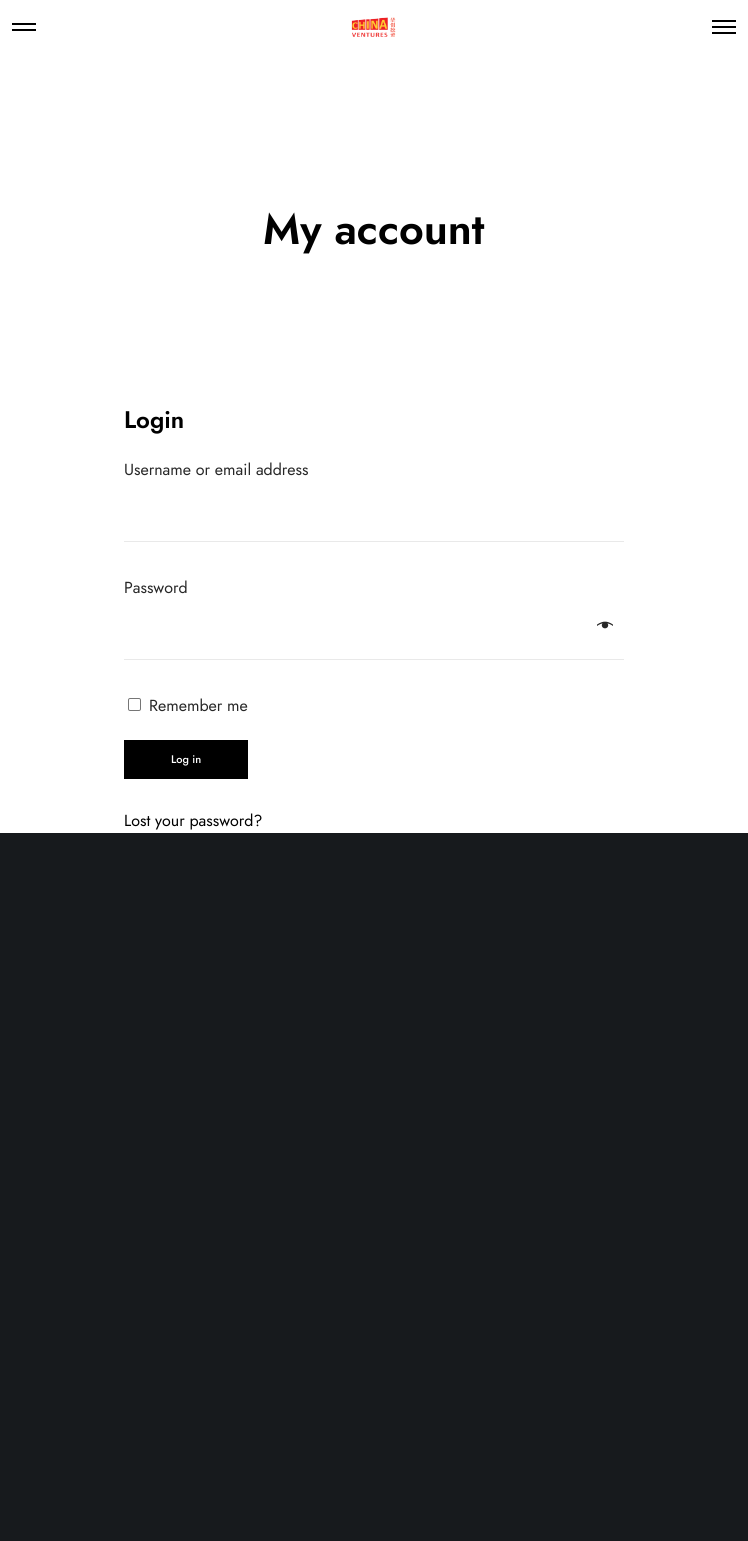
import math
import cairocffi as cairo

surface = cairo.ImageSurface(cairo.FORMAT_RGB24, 748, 1541)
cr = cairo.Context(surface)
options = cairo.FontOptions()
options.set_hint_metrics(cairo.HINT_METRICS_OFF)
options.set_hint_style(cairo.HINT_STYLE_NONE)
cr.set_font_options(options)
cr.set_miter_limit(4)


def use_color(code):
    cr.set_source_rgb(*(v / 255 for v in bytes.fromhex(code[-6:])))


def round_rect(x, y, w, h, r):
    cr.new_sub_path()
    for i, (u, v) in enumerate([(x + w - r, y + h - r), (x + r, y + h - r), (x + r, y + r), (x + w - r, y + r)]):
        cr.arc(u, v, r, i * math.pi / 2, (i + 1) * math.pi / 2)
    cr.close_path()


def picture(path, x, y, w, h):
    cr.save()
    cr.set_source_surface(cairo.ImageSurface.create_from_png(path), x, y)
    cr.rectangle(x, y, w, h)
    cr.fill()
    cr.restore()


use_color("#171a1d")
cr.paint()
use_color("#ffffff")
cr.rectangle(0, 0, 748, 833)
cr.fill()
use_color("#000000")
cr.new_path()
cr.move_to(36, 29)
cr.line_to(36, 31)
cr.line_to(12, 31)
cr.line_to(12, 29)
cr.close_path()
cr.move_to(36, 23)
cr.line_to(36, 25)
cr.line_to(12, 25)
cr.line_to(12, 23)
cr.close_path()
cr.fill()
picture("img1.png", 351, 17, 45, 20)
picture("img2.png", 712, 20, 24, 14)
cr.select_font_face("Jost SemiBold")
cr.set_font_size(43)
cr.move_to(263, 244)
cr.show_text("My account")
cr.set_font_size(24)
cr.move_to(124, 428)
cr.show_text("Login")
cr.select_font_face("Jost")
cr.set_font_size(16)
use_color("#272727")
cr.move_to(124, 475)
cr.show_text("Username or email address")
use_color("#e9e9e9")
cr.rectangle(124, 541, 500, 1)
cr.fill()
use_color("#272727")
cr.move_to(124, 593)
cr.show_text("Password")
picture("img3.png", 597, 621, 16, 8)
use_color("#e9e9e9")
cr.rectangle(124, 659, 500, 1)
cr.fill()
round_rect(128.5, 698.5, 12, 12, 1.5)
use_color("#767676")
cr.set_line_width(1)
cr.stroke()
use_color("#272727")
cr.move_to(149, 711)
cr.show_text("Remember me")
use_color("#000000")
cr.rectangle(124, 740, 124, 39)
cr.fill()
cr.select_font_face("Jost Medium")
cr.set_font_size(11)
use_color("#ffffff")
cr.move_to(171, 763)
cr.show_text("Log in")
cr.select_font_face("Jost")
cr.set_font_size(16)
use_color("#000000")
cr.move_to(124, 826)
cr.show_text("Lost your password?")
surface.write_to_png("result.png")
